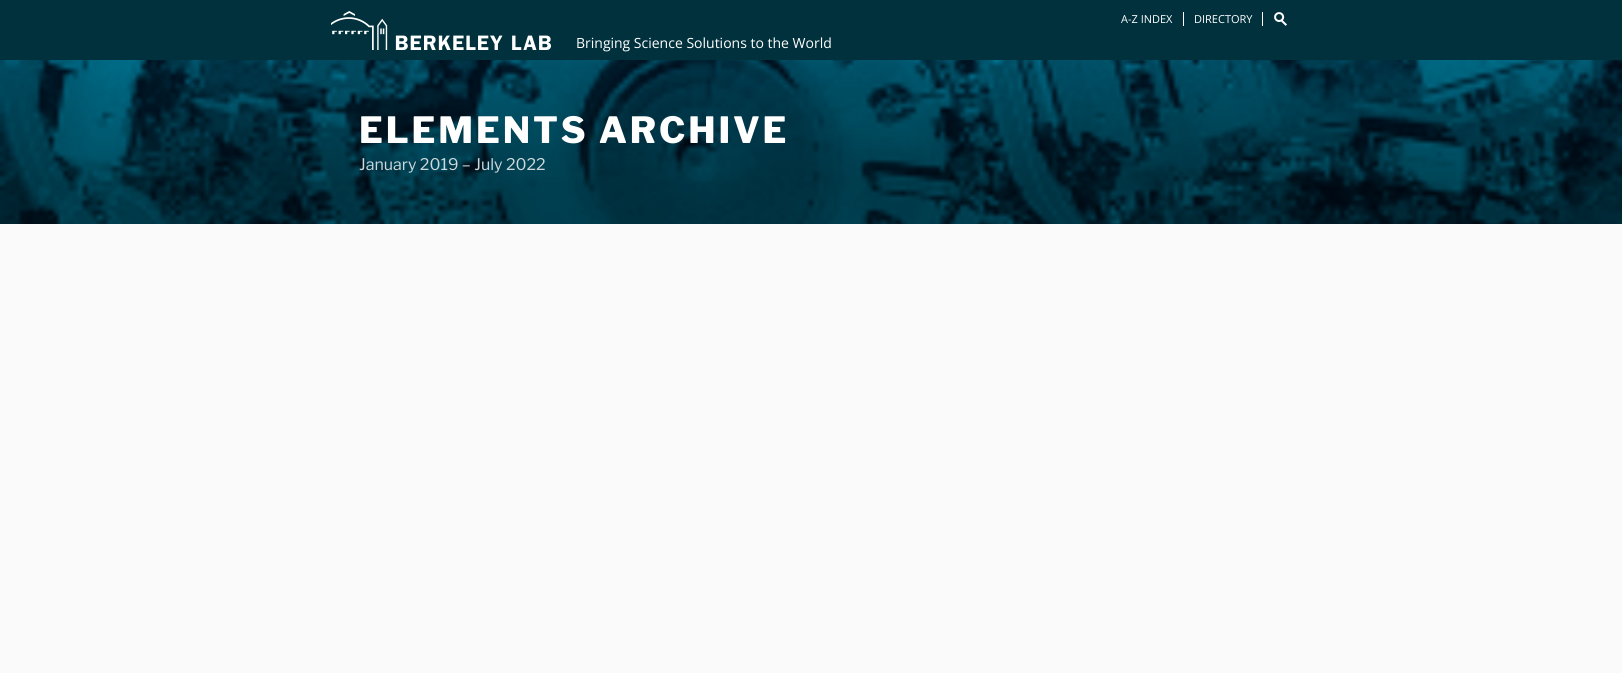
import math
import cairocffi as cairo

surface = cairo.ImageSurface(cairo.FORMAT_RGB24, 1622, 673)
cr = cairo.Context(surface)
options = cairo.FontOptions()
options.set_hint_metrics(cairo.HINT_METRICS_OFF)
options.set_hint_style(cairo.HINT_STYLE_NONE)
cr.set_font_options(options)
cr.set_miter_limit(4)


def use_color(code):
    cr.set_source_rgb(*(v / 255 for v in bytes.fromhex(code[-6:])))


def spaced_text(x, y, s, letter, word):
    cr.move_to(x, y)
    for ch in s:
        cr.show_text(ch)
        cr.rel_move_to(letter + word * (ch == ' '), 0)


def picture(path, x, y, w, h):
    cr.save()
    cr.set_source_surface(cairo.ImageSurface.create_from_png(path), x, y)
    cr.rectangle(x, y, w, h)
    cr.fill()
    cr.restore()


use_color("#00313c")
cr.paint()
picture("img1.png", 331, 11, 220, 39)
use_color("#ffffff")
cr.rectangle(1183, 12, 1, 14)
cr.fill()
cr.select_font_face("Open Sans")
cr.set_font_size(11)
cr.move_to(1121, 23)
cr.show_text("A-Z INDEX")
cr.rectangle(1262, 12, 1, 14)
cr.fill()
cr.move_to(1194, 23)
cr.show_text("DIRECTORY")
picture("img2.png", 1274, 12, 13, 14)
cr.set_font_size(14)
cr.move_to(576, 48)
cr.show_text("Bringing Science Solutions to the World")
picture("img3.png", 0, 60, 1622, 164)
cr.select_font_face("Libre Franklin ExtraBold")
cr.set_font_size(36)
spaced_text(359, 143, "ELEMENTS ARCHIVE", 2.9, 0)
cr.select_font_face("Libre Franklin")
cr.set_font_size(16)
use_color("#ccd8db")
cr.move_to(359, 170)
cr.show_text("January 2019 – July 2022")
use_color("#fafafa")
cr.rectangle(0, 224, 1622, 449)
cr.fill()
surface.write_to_png("result.png")
